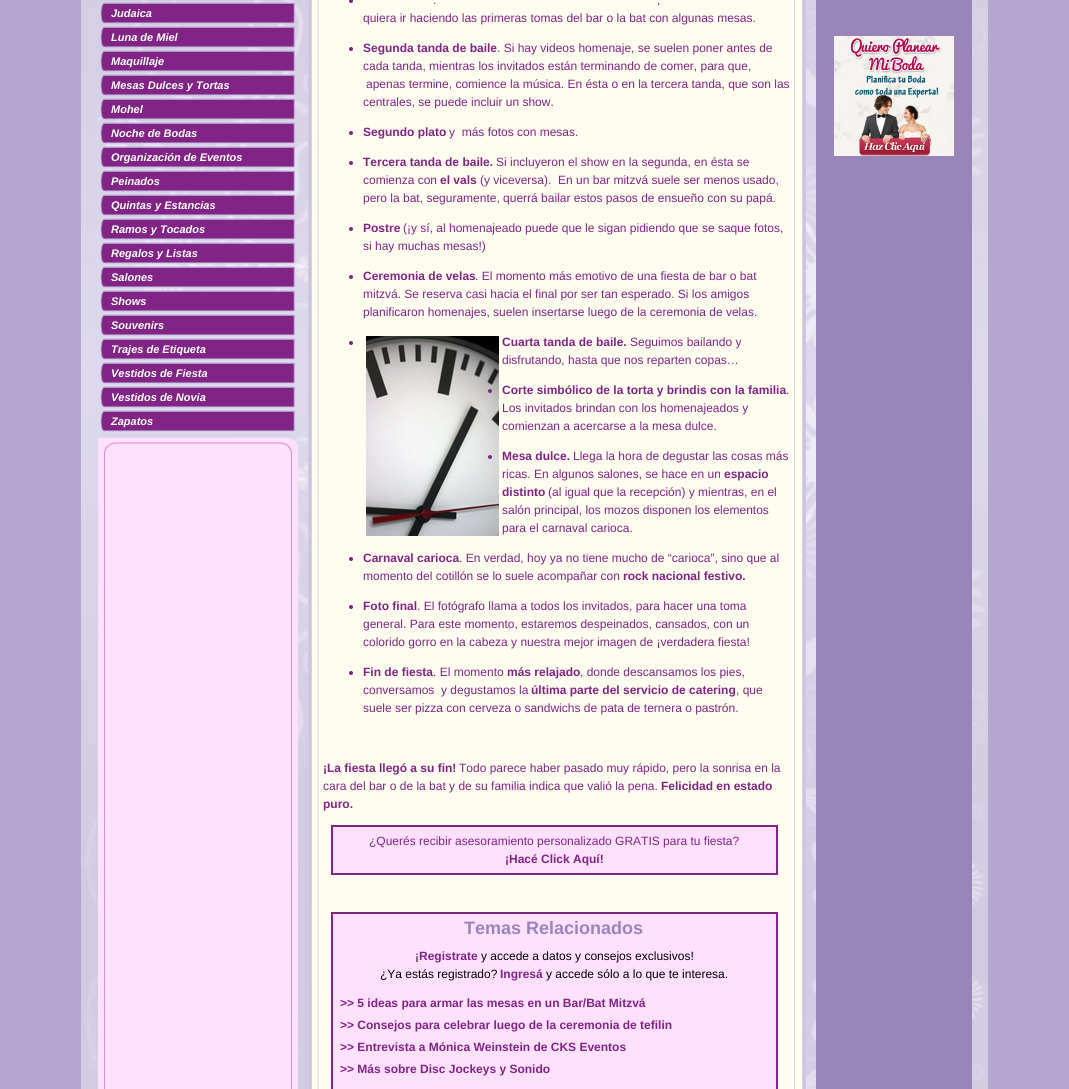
import math
import cairocffi as cairo

surface = cairo.ImageSurface(cairo.FORMAT_RGB24, 1069, 1089)
cr = cairo.Context(surface)
options = cairo.FontOptions()
options.set_hint_metrics(cairo.HINT_METRICS_OFF)
options.set_hint_style(cairo.HINT_STYLE_NONE)
cr.set_font_options(options)
cr.set_miter_limit(4)


def use_color(code):
    cr.set_source_rgb(*(v / 255 for v in bytes.fromhex(code[-6:])))


def picture(path, x, y, w, h):
    cr.save()
    cr.set_source_surface(cairo.ImageSurface.create_from_png(path), x, y)
    cr.rectangle(x, y, w, h)
    cr.fill()
    cr.restore()


use_color("#b4a8d0")
cr.paint()
picture("img1.png", 81, 0, 907, 1089)
picture("img2.png", 100, 2, 195, 22)
cr.select_font_face("Liberation Sans", cairo.FONT_SLANT_ITALIC, cairo.FONT_WEIGHT_BOLD)
cr.set_font_size(11)
use_color("#ffffff")
cr.move_to(111, 17)
cr.show_text("Judaica")
picture("img3.png", 100, 26, 195, 22)
cr.move_to(111, 41)
cr.show_text("Luna de Miel")
picture("img4.png", 100, 50, 195, 22)
cr.move_to(111, 65)
cr.show_text("Maquillaje")
picture("img5.png", 100, 74, 195, 22)
cr.move_to(111, 89)
cr.show_text("Mesas Dulces y Tortas")
picture("img6.png", 100, 98, 195, 22)
cr.move_to(111, 113)
cr.show_text("Mohel")
picture("img7.png", 100, 122, 195, 22)
cr.move_to(111, 137)
cr.show_text("Noche de Bodas")
picture("img8.png", 100, 146, 195, 22)
cr.move_to(111, 161)
cr.show_text("Organización de Eventos")
picture("img9.png", 100, 170, 195, 22)
cr.move_to(111, 185)
cr.show_text("Peinados")
picture("img10.png", 100, 194, 195, 22)
cr.move_to(111, 209)
cr.show_text("Quintas y Estancias")
picture("img11.png", 100, 218, 195, 22)
cr.move_to(111, 233)
cr.show_text("Ramos y Tocados")
picture("img12.png", 100, 242, 195, 22)
cr.move_to(111, 257)
cr.show_text("Regalos y Listas")
picture("img13.png", 100, 266, 195, 22)
cr.move_to(111, 281)
cr.show_text("Salones")
picture("img14.png", 100, 290, 195, 22)
cr.move_to(111, 305)
cr.show_text("Shows")
picture("img15.png", 100, 314, 195, 22)
cr.move_to(111, 329)
cr.show_text("Souvenirs")
picture("img16.png", 100, 338, 195, 22)
cr.move_to(111, 353)
cr.show_text("Trajes de Etiqueta")
picture("img17.png", 100, 362, 195, 22)
cr.move_to(111, 377)
cr.show_text("Vestidos de Fiesta")
picture("img18.png", 100, 386, 195, 22)
cr.move_to(111, 401)
cr.show_text("Vestidos de Novia")
picture("img19.png", 100, 410, 195, 22)
cr.move_to(111, 425)
cr.show_text("Zapatos")
picture("img20.png", 98, 434, 200, 27)
picture("img21.png", 98, 461, 200, 628)
picture("img22.png", 308, 0, 498, 1089)
use_color("#822485")
cr.arc(351, 1, 2, 0, 2 * math.pi)
cr.fill()
cr.select_font_face("Liberation Sans")
cr.set_font_size(12)
cr.move_to(433, 4)
cr.show_text(".")
cr.move_to(657, 4)
cr.show_text(",")
cr.move_to(363, 22)
cr.show_text("quiera ir haciendo las primeras tomas del bar o la bat con algunas mesas.")
cr.new_path()
cr.arc(351, 49, 2, 0, 2 * math.pi)
cr.fill()
cr.select_font_face("Liberation Sans", cairo.FONT_SLANT_NORMAL, cairo.FONT_WEIGHT_BOLD)
cr.move_to(363, 52)
cr.show_text("Segunda tanda de baile")
cr.select_font_face("Liberation Sans")
cr.move_to(497, 52)
cr.show_text(". Si hay videos homenaje, se suelen poner antes de")
cr.move_to(363, 70)
cr.show_text("cada tanda, mientras los invitados están terminando de comer, para que,")
cr.move_to(366, 88)
cr.show_text("apenas termine, comience la música. En ésta o en la tercera tanda, que son las")
cr.move_to(363, 106)
cr.show_text("centrales, se puede incluir un show.")
cr.new_path()
cr.arc(351, 133, 2, 0, 2 * math.pi)
cr.fill()
cr.select_font_face("Liberation Sans", cairo.FONT_SLANT_NORMAL, cairo.FONT_WEIGHT_BOLD)
cr.move_to(363, 136)
cr.show_text("Segundo plato")
cr.select_font_face("Liberation Sans")
cr.move_to(449, 136)
cr.show_text("y  más fotos con mesas.")
cr.new_path()
cr.arc(351, 163, 2, 0, 2 * math.pi)
cr.fill()
cr.select_font_face("Liberation Sans", cairo.FONT_SLANT_NORMAL, cairo.FONT_WEIGHT_BOLD)
cr.move_to(363, 166)
cr.show_text("Tercera tanda de baile.")
cr.select_font_face("Liberation Sans")
cr.move_to(496, 166)
cr.show_text("Si incluyeron el show en la segunda, en ésta se")
cr.move_to(363, 184)
cr.show_text("comienza con")
cr.select_font_face("Liberation Sans", cairo.FONT_SLANT_NORMAL, cairo.FONT_WEIGHT_BOLD)
cr.move_to(440, 184)
cr.show_text("el vals")
cr.select_font_face("Liberation Sans")
cr.move_to(480, 184)
cr.show_text("(y viceversa).  En un bar mitzvá suele ser menos usado,")
cr.move_to(363, 202)
cr.show_text("pero la bat, seguramente, querrá bailar estos pasos de ensueño con su papá.")
cr.new_path()
cr.arc(351, 229, 2, 0, 2 * math.pi)
cr.fill()
cr.select_font_face("Liberation Sans", cairo.FONT_SLANT_NORMAL, cairo.FONT_WEIGHT_BOLD)
cr.move_to(363, 232)
cr.show_text("Postre")
cr.select_font_face("Liberation Sans")
cr.move_to(403, 232)
cr.show_text("(¡y sí, al homenajeado puede que le sigan pidiendo que se saque fotos,")
cr.move_to(363, 250)
cr.show_text("si hay muchas mesas!)")
cr.new_path()
cr.arc(351, 277, 2, 0, 2 * math.pi)
cr.fill()
cr.select_font_face("Liberation Sans", cairo.FONT_SLANT_NORMAL, cairo.FONT_WEIGHT_BOLD)
cr.move_to(363, 280)
cr.show_text("Ceremonia de velas")
cr.select_font_face("Liberation Sans")
cr.move_to(475, 280)
cr.show_text(". El momento más emotivo de una fiesta de bar o bat")
cr.move_to(363, 298)
cr.show_text("mitzvá. Se reserva casi hacia el final por ser tan esperado. Si los amigos")
cr.move_to(363, 316)
cr.show_text("planificaron homenajes, suelen insertarse luego de la ceremonia de velas.")
cr.new_path()
cr.arc(351, 343, 2, 0, 2 * math.pi)
cr.fill()
picture("img23.png", 366, 336, 133, 200)
cr.select_font_face("Liberation Sans", cairo.FONT_SLANT_NORMAL, cairo.FONT_WEIGHT_BOLD)
cr.move_to(502, 346)
cr.show_text("Cuarta tanda de baile.")
cr.select_font_face("Liberation Sans")
cr.move_to(630, 346)
cr.show_text("Seguimos bailando y")
cr.move_to(502, 364)
cr.show_text("disfrutando, hasta que nos reparten copas…")
cr.new_path()
cr.arc(490, 391, 2, 0, 2 * math.pi)
cr.fill()
cr.select_font_face("Liberation Sans", cairo.FONT_SLANT_NORMAL, cairo.FONT_WEIGHT_BOLD)
cr.move_to(502, 394)
cr.show_text("Corte simbólico de la torta y brindis con la familia")
cr.select_font_face("Liberation Sans")
cr.move_to(786, 394)
cr.show_text(".")
cr.move_to(502, 412)
cr.show_text("Los invitados brindan con los homenajeados y")
cr.move_to(502, 430)
cr.show_text("comienzan a acercarse a la mesa dulce.")
cr.new_path()
cr.arc(490, 457, 2, 0, 2 * math.pi)
cr.fill()
cr.select_font_face("Liberation Sans", cairo.FONT_SLANT_NORMAL, cairo.FONT_WEIGHT_BOLD)
cr.move_to(502, 460)
cr.show_text("Mesa dulce.")
cr.select_font_face("Liberation Sans")
cr.move_to(573, 460)
cr.show_text("Llega la hora de degustar las cosas más")
cr.move_to(502, 478)
cr.show_text("ricas. En algunos salones, se hace en un")
cr.select_font_face("Liberation Sans", cairo.FONT_SLANT_NORMAL, cairo.FONT_WEIGHT_BOLD)
cr.move_to(724, 478)
cr.show_text("espacio")
cr.move_to(502, 496)
cr.show_text("distinto")
cr.select_font_face("Liberation Sans")
cr.move_to(548, 496)
cr.show_text("(al igual que la recepción) y mientras, en el")
cr.move_to(502, 514)
cr.show_text("salón principal, los mozos disponen los elementos")
cr.move_to(502, 532)
cr.show_text("para el carnaval carioca.")
cr.new_path()
cr.arc(351, 559, 2, 0, 2 * math.pi)
cr.fill()
cr.select_font_face("Liberation Sans", cairo.FONT_SLANT_NORMAL, cairo.FONT_WEIGHT_BOLD)
cr.move_to(363, 562)
cr.show_text("Carnaval carioca")
cr.select_font_face("Liberation Sans")
cr.move_to(459, 562)
cr.show_text(". En verdad, hoy ya no tiene mucho de “carioca”, sino que al")
cr.move_to(363, 580)
cr.show_text("momento del cotillón se lo suele acompañar con")
cr.select_font_face("Liberation Sans", cairo.FONT_SLANT_NORMAL, cairo.FONT_WEIGHT_BOLD)
cr.move_to(623, 580)
cr.show_text("rock nacional festivo.")
cr.new_path()
cr.arc(351, 607, 2, 0, 2 * math.pi)
cr.fill()
cr.move_to(363, 610)
cr.show_text("Foto final")
cr.select_font_face("Liberation Sans")
cr.move_to(417, 610)
cr.show_text(". El fotógrafo llama a todos los invitados, para hacer una toma")
cr.move_to(363, 628)
cr.show_text("general. Para este momento, estaremos despeinados, cansados, con un")
cr.move_to(363, 646)
cr.show_text("colorido gorro en la cabeza y nuestra mejor imagen de ¡verdadera fiesta!")
cr.new_path()
cr.arc(351, 673, 2, 0, 2 * math.pi)
cr.fill()
cr.select_font_face("Liberation Sans", cairo.FONT_SLANT_NORMAL, cairo.FONT_WEIGHT_BOLD)
cr.move_to(363, 676)
cr.show_text("Fin de fiesta")
cr.select_font_face("Liberation Sans")
cr.move_to(433, 676)
cr.show_text(". El momento")
cr.select_font_face("Liberation Sans", cairo.FONT_SLANT_NORMAL, cairo.FONT_WEIGHT_BOLD)
cr.move_to(507, 676)
cr.show_text("más relajado")
cr.select_font_face("Liberation Sans")
cr.move_to(580, 676)
cr.show_text(", donde descansamos los pies,")
cr.move_to(363, 694)
cr.show_text("conversamos  y degustamos la")
cr.select_font_face("Liberation Sans", cairo.FONT_SLANT_NORMAL, cairo.FONT_WEIGHT_BOLD)
cr.move_to(531, 694)
cr.show_text("última parte del servicio de catering")
cr.select_font_face("Liberation Sans")
cr.move_to(736, 694)
cr.show_text(", que")
cr.move_to(363, 712)
cr.show_text("suele ser pizza con cerveza o sandwichs de pata de ternera o pastrón.")
cr.select_font_face("Liberation Sans", cairo.FONT_SLANT_NORMAL, cairo.FONT_WEIGHT_BOLD)
cr.move_to(323, 772)
cr.show_text("¡La fiesta llegó a su fin!")
cr.select_font_face("Liberation Sans")
cr.move_to(459, 772)
cr.show_text("Todo parece haber pasado muy rápido, pero la sonrisa en la")
cr.move_to(323, 790)
cr.show_text("cara del bar o de la bat y de su familia indica que valió la pena.")
cr.select_font_face("Liberation Sans", cairo.FONT_SLANT_NORMAL, cairo.FONT_WEIGHT_BOLD)
cr.move_to(661, 790)
cr.show_text("Felicidad en estado")
cr.move_to(323, 808)
cr.show_text("puro.")
use_color("#ffe1ff")
cr.rectangle(332, 826, 445, 48)
cr.fill_preserve()
use_color("#822485")
cr.stroke()
cr.select_font_face("Liberation Sans")
cr.move_to(369, 845)
cr.show_text("¿Querés recibir asesoramiento personalizado GRATIS para tu fiesta?")
cr.select_font_face("Liberation Sans", cairo.FONT_SLANT_NORMAL, cairo.FONT_WEIGHT_BOLD)
cr.move_to(505, 863)
cr.show_text("¡Hacé Click Aquí!")
use_color("#ffe1ff")
cr.rectangle(332, 913, 445, 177)
cr.fill_preserve()
use_color("#822485")
cr.stroke()
cr.set_font_size(18)
use_color("#9a85ba")
cr.move_to(464, 934)
cr.show_text("Temas Relacionados")
cr.select_font_face("Liberation Sans")
cr.set_font_size(12)
use_color("#000000")
cr.move_to(415, 960)
cr.show_text("¡")
cr.select_font_face("Liberation Sans", cairo.FONT_SLANT_NORMAL, cairo.FONT_WEIGHT_BOLD)
use_color("#822485")
cr.move_to(419, 960)
cr.show_text("Registrate")
cr.select_font_face("Liberation Sans")
use_color("#000000")
cr.move_to(481, 960)
cr.show_text("y accede a datos y consejos exclusivos!")
cr.move_to(380, 978)
cr.show_text("¿Ya estás registrado?")
cr.select_font_face("Liberation Sans", cairo.FONT_SLANT_NORMAL, cairo.FONT_WEIGHT_BOLD)
use_color("#822485")
cr.move_to(500, 978)
cr.show_text("Ingresá")
cr.select_font_face("Liberation Sans")
use_color("#000000")
cr.move_to(546, 978)
cr.show_text("y accede sólo a lo que te interesa.")
cr.select_font_face("Liberation Sans", cairo.FONT_SLANT_NORMAL, cairo.FONT_WEIGHT_BOLD)
use_color("#822485")
cr.move_to(340, 1007)
cr.show_text(">> 5 ideas para armar las mesas en un Bar/Bat Mitzvá")
cr.move_to(340, 1029)
cr.show_text(">> Consejos para celebrar luego de la ceremonia de tefilin")
cr.move_to(340, 1051)
cr.show_text(">> Entrevista a Mónica Weinstein de CKS Eventos")
cr.move_to(340, 1073)
cr.show_text(">> Más sobre Disc Jockeys y Sonido")
use_color("#9a85ba")
cr.rectangle(816, 0, 156, 1089)
cr.fill()
picture("img24.png", 834, 36, 120, 120)
surface.write_to_png("result.png")
